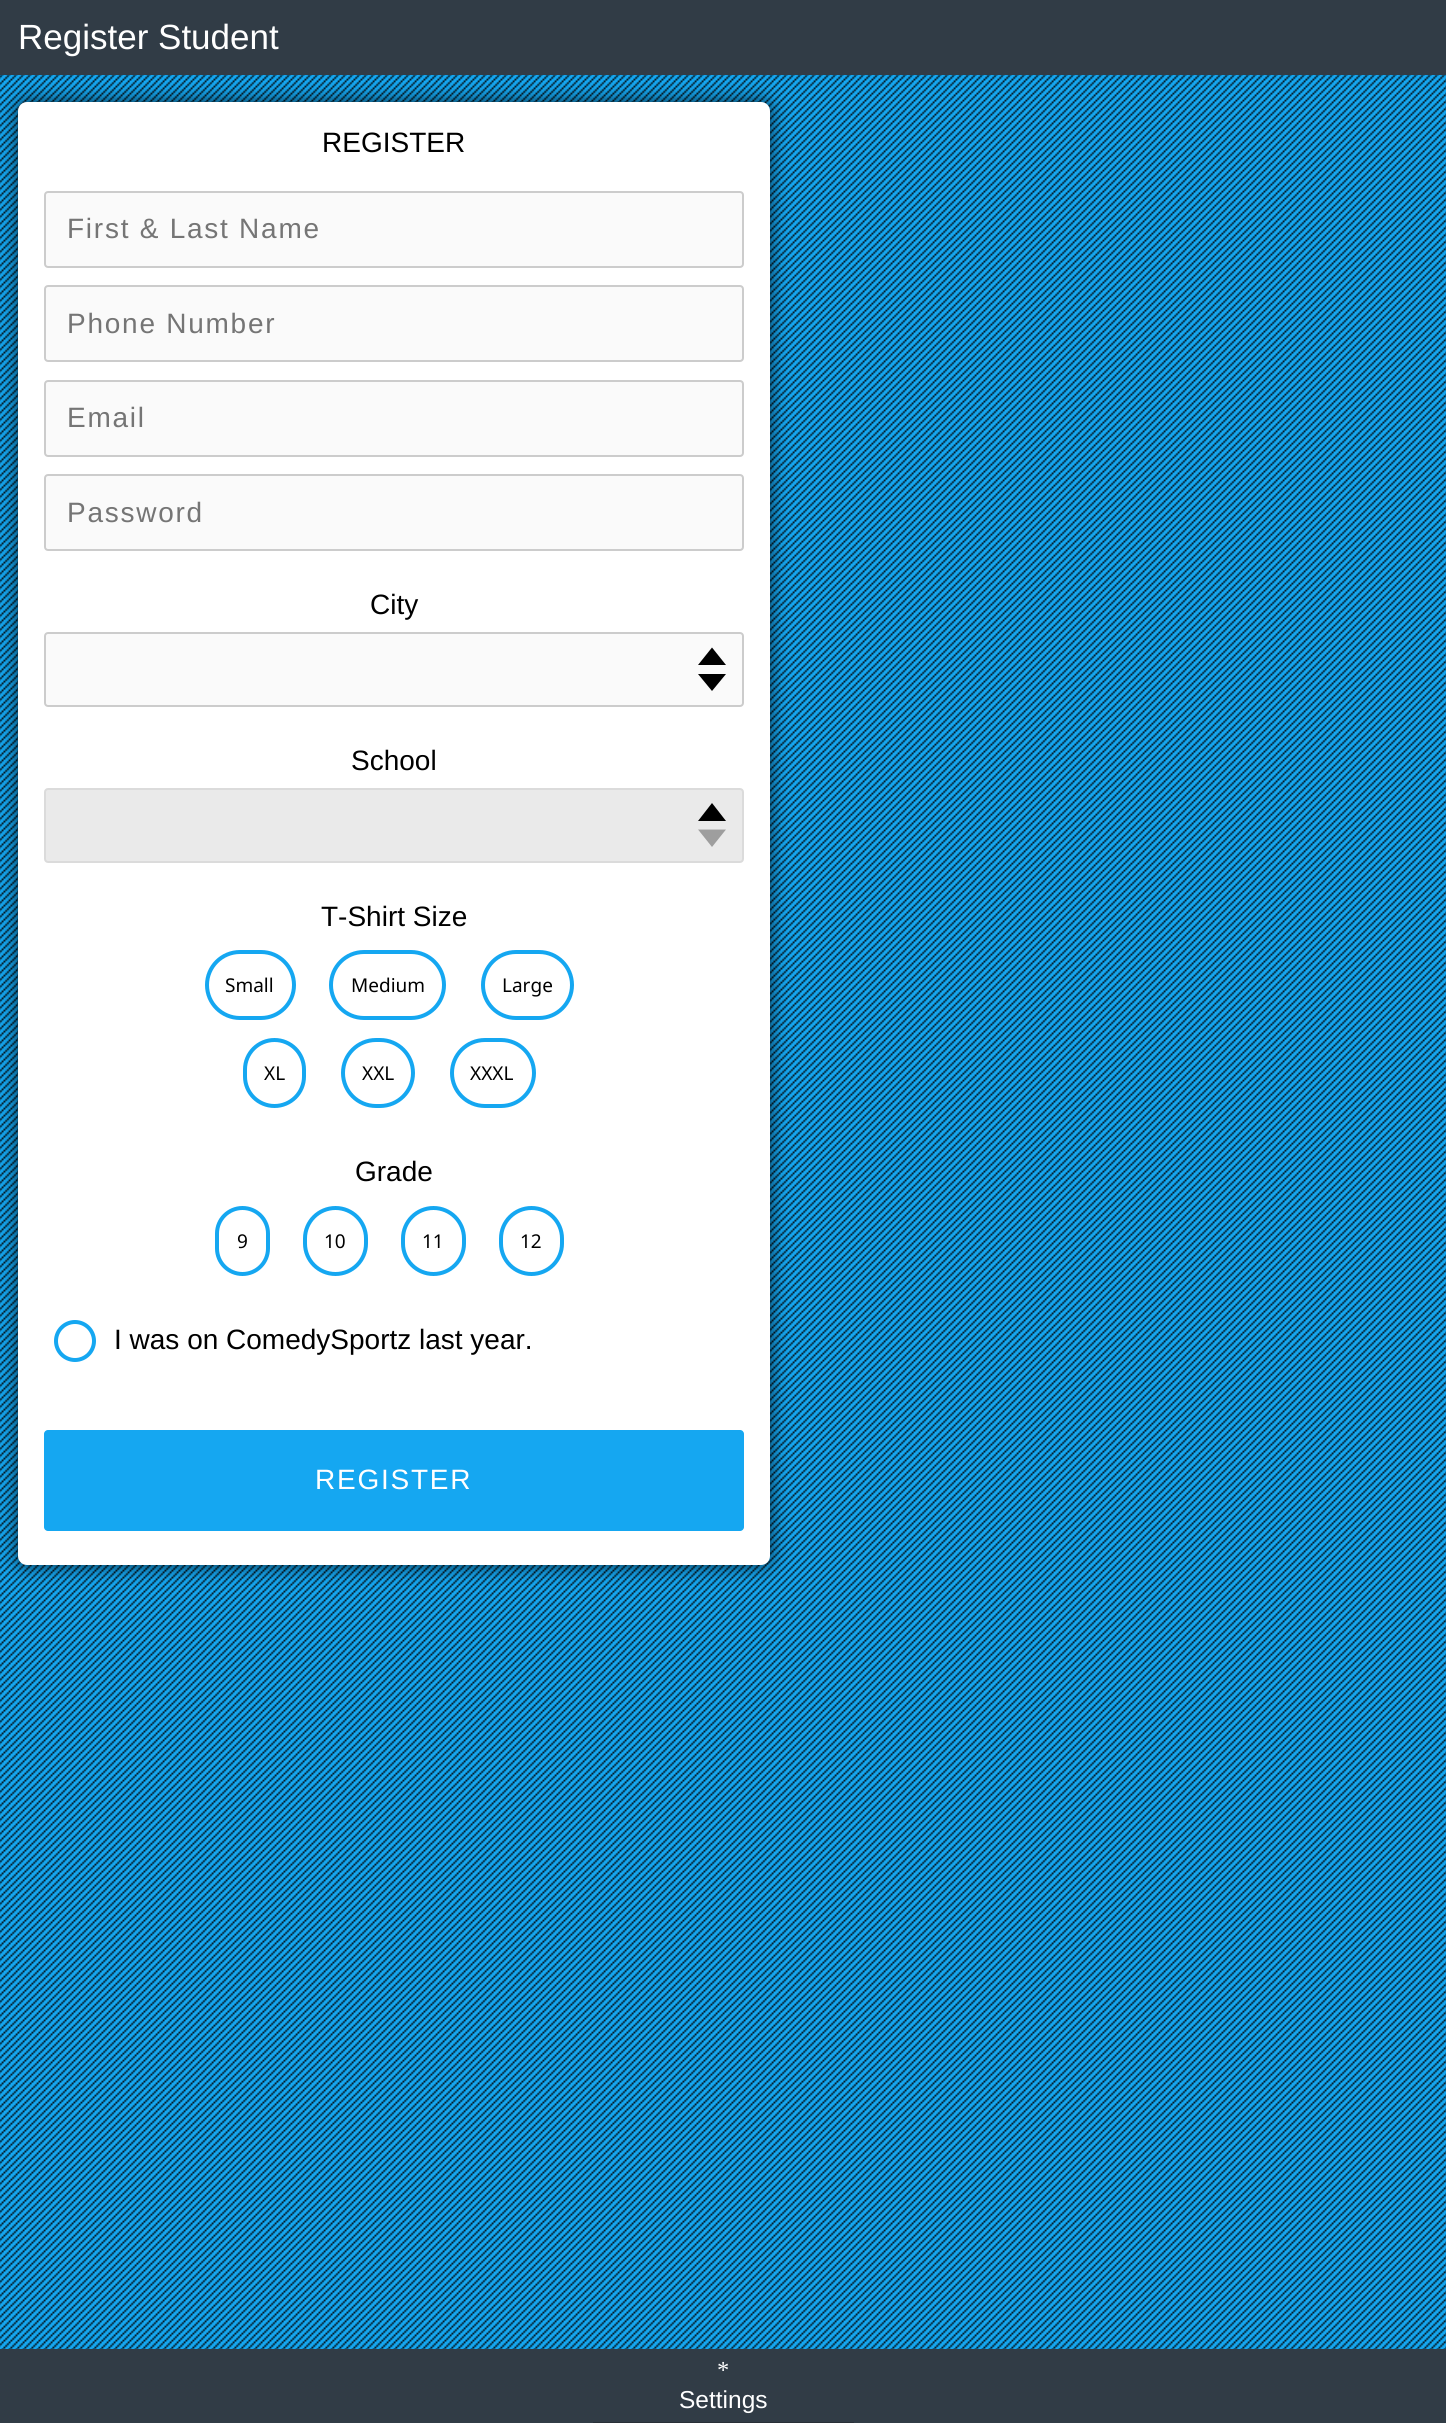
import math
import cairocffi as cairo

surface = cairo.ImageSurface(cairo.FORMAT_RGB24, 1446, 2423)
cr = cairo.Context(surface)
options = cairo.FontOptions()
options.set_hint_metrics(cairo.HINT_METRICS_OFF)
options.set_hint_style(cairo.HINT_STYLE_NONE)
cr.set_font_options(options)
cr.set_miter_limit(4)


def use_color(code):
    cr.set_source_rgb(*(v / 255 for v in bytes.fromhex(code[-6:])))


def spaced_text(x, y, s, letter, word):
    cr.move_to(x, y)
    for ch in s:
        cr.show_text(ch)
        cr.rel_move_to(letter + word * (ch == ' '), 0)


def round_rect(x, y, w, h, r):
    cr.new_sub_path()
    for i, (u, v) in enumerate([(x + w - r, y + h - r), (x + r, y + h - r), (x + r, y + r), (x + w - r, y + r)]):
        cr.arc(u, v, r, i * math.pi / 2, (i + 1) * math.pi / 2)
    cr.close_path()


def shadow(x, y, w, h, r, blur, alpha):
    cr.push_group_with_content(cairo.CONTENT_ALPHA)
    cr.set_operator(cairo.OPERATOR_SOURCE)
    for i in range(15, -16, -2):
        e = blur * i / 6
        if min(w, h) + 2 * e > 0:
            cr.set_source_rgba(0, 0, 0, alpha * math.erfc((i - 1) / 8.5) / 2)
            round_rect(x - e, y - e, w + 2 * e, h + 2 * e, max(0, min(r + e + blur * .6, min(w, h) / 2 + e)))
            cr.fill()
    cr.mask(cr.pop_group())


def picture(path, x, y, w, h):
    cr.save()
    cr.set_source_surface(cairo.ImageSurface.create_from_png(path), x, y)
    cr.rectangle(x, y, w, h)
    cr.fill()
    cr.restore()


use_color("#15a7f1")
cr.paint()
picture("img1.png", 0, 75, 1446, 2274)
use_color("#000000")
shadow(18, 102, 752, 1463, 9, 9, 0.75)
use_color("#313c46")
cr.rectangle(0, 0, 1446, 75)
cr.fill()
cr.select_font_face("Liberation Sans")
cr.set_font_size(35)
use_color("#ffffff")
cr.move_to(18, 49)
cr.show_text("Register Student")
round_rect(18, 102, 752, 1463, 9)
cr.fill()
cr.set_font_size(28)
use_color("#000000")
cr.move_to(322, 152)
cr.show_text("REGISTER")
use_color("#fafafa")
round_rect(45, 192, 698, 75, 3)
cr.fill_preserve()
use_color("#cccccc")
cr.stroke()
use_color("#757575")
spaced_text(67, 238, "First & Last Name", 1.75, 0)
use_color("#fafafa")
round_rect(45, 286, 698, 75, 3)
cr.fill_preserve()
use_color("#cccccc")
cr.stroke()
use_color("#757575")
spaced_text(67, 333, "Phone Number", 1.75, 0)
use_color("#fafafa")
round_rect(45, 381, 698, 75, 3)
cr.fill_preserve()
use_color("#cccccc")
cr.stroke()
use_color("#757575")
spaced_text(67, 427, "Email", 1.75, 0)
use_color("#fafafa")
round_rect(45, 475, 698, 75, 3)
cr.fill_preserve()
use_color("#cccccc")
cr.stroke()
use_color("#757575")
spaced_text(67, 522, "Password", 1.75, 0)
use_color("#000000")
cr.move_to(370, 614)
cr.show_text("City")
use_color("#fafafa")
round_rect(45, 633, 698, 73, 3)
cr.fill_preserve()
use_color("#cccccc")
cr.stroke()
use_color("#000000")
cr.new_path()
cr.move_to(698, 674)
cr.line_to(726, 674)
cr.line_to(712, 691)
cr.close_path()
cr.move_to(726, 665)
cr.line_to(698, 665)
cr.line_to(712, 647.5)
cr.close_path()
cr.fill()
cr.move_to(351, 770)
cr.show_text("School")
cr.new_path()
cr.move_to(698, 829.5)
cr.line_to(726, 829.5)
cr.line_to(712, 847)
cr.close_path()
cr.fill()
cr.set_source_rgba(0.886, 0.886, 0.886, 0.7)
round_rect(45, 789, 698, 73, 3)
cr.fill_preserve()
use_color("#dbdbdb")
cr.stroke()
use_color("#000000")
cr.new_path()
cr.move_to(726, 821)
cr.line_to(698, 821)
cr.line_to(712, 803)
cr.close_path()
cr.fill()
cr.move_to(321, 926)
cr.show_text("T-Shirt Size")
round_rect(207, 952, 87, 66, 33)
use_color("#15a7f1")
cr.set_line_width(4)
cr.stroke()
cr.select_font_face("Noto Sans")
cr.set_font_size(19)
use_color("#000000")
cr.move_to(225, 992)
cr.show_text("Small")
round_rect(331, 952, 113, 66, 33)
use_color("#15a7f1")
cr.stroke()
use_color("#000000")
cr.move_to(351, 992)
cr.show_text("Medium")
round_rect(483, 952, 89, 66, 33)
use_color("#15a7f1")
cr.stroke()
use_color("#000000")
cr.move_to(502, 992)
cr.show_text("Large")
round_rect(245, 1040, 59, 66, 29.5)
use_color("#15a7f1")
cr.stroke()
use_color("#000000")
cr.move_to(264, 1080)
cr.show_text("XL")
round_rect(343, 1040, 70, 66, 33)
use_color("#15a7f1")
cr.stroke()
use_color("#000000")
cr.move_to(362, 1080)
cr.show_text("XXL")
round_rect(452, 1040, 82, 66, 33)
use_color("#15a7f1")
cr.stroke()
use_color("#000000")
cr.move_to(470, 1080)
cr.show_text("XXXL")
cr.select_font_face("Liberation Sans")
cr.set_font_size(28)
cr.move_to(355, 1181)
cr.show_text("Grade")
round_rect(217, 1208, 51, 66, 25.5)
use_color("#15a7f1")
cr.stroke()
cr.select_font_face("Noto Sans")
cr.set_font_size(19)
use_color("#000000")
cr.move_to(237, 1248)
cr.show_text("9")
round_rect(305, 1208, 61, 66, 30.5)
use_color("#15a7f1")
cr.stroke()
use_color("#000000")
cr.move_to(324, 1248)
cr.show_text("10")
round_rect(403, 1208, 61, 66, 30.5)
use_color("#15a7f1")
cr.stroke()
use_color("#000000")
cr.move_to(422, 1248)
cr.show_text("11")
round_rect(501, 1208, 61, 66, 30.5)
use_color("#15a7f1")
cr.stroke()
use_color("#000000")
cr.move_to(520, 1248)
cr.show_text("12")
cr.new_path()
cr.arc(75, 1341, 19, 0, 2 * math.pi)
use_color("#15a7f1")
cr.stroke()
cr.select_font_face("Liberation Sans")
cr.set_font_size(28)
use_color("#000000")
cr.move_to(114, 1349)
cr.show_text("I was on ComedySportz last year.")
use_color("#15a7f1")
round_rect(44, 1430, 700, 101, 4)
cr.fill()
use_color("#ffffff")
spaced_text(315, 1489, "REGISTER", 1.75, 0)
use_color("#313c46")
cr.rectangle(0, 2349, 1446, 74)
cr.fill()
use_color("#272f37")
cr.rectangle(593, 2422, 261, 1)
cr.fill()
cr.select_font_face("Liberation Serif")
cr.set_font_size(24.5)
use_color("#ffffff")
cr.move_to(717, 2378)
cr.show_text("*")
cr.select_font_face("Liberation Sans")
cr.move_to(679, 2408)
cr.show_text("Settings")
surface.write_to_png("result.png")
